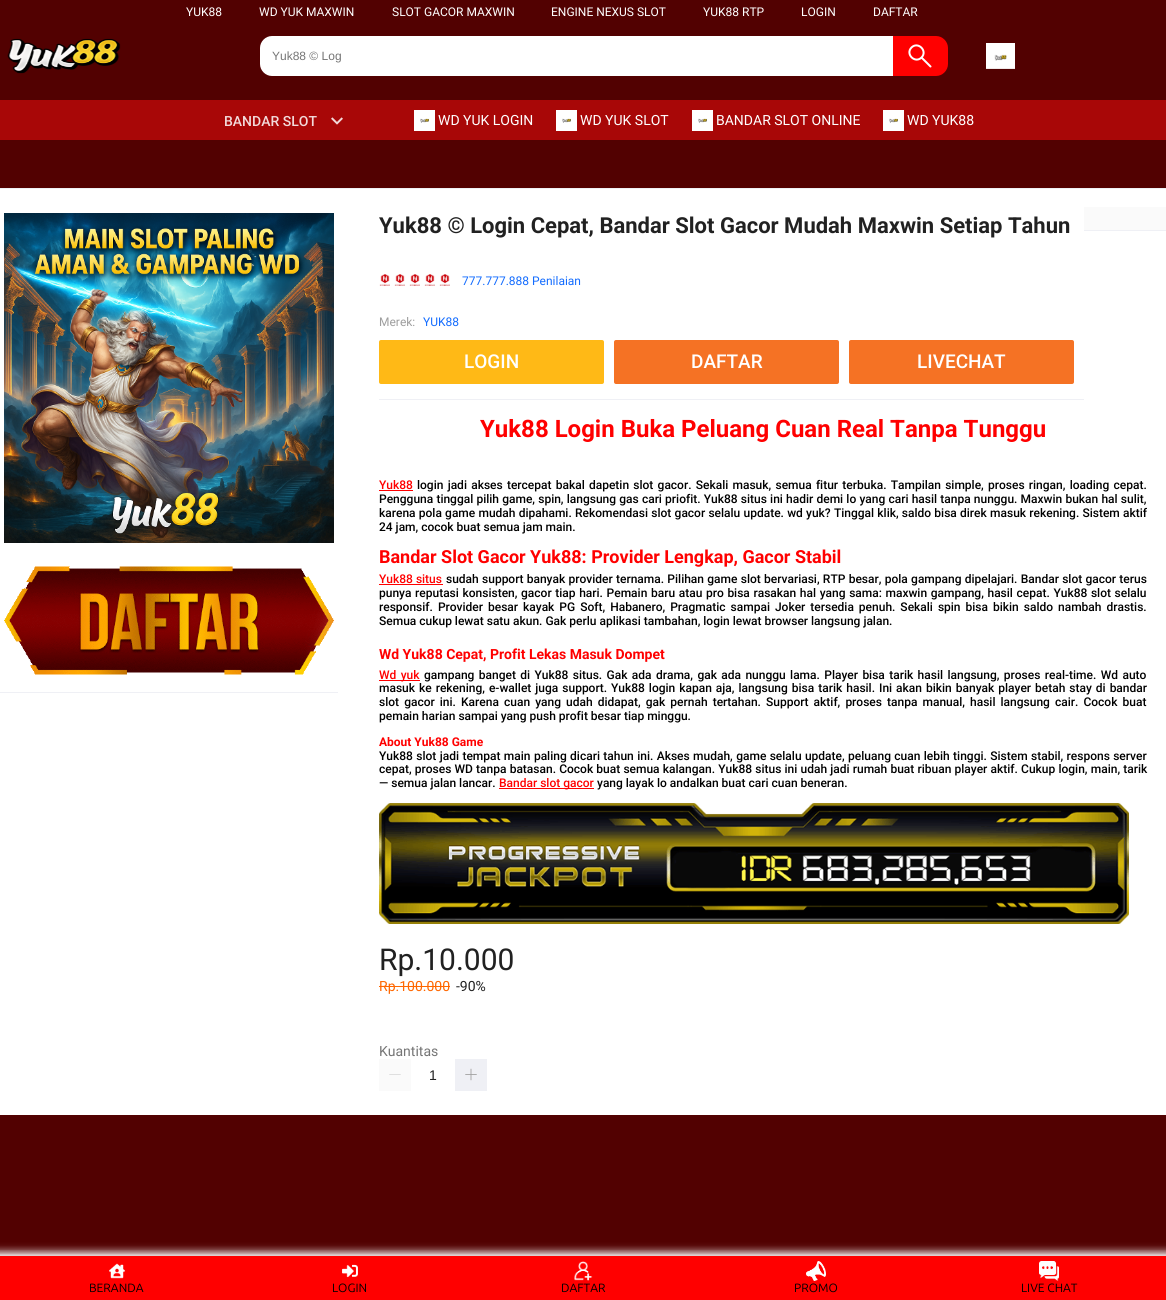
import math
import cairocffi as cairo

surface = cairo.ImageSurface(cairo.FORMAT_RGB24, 1166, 1300)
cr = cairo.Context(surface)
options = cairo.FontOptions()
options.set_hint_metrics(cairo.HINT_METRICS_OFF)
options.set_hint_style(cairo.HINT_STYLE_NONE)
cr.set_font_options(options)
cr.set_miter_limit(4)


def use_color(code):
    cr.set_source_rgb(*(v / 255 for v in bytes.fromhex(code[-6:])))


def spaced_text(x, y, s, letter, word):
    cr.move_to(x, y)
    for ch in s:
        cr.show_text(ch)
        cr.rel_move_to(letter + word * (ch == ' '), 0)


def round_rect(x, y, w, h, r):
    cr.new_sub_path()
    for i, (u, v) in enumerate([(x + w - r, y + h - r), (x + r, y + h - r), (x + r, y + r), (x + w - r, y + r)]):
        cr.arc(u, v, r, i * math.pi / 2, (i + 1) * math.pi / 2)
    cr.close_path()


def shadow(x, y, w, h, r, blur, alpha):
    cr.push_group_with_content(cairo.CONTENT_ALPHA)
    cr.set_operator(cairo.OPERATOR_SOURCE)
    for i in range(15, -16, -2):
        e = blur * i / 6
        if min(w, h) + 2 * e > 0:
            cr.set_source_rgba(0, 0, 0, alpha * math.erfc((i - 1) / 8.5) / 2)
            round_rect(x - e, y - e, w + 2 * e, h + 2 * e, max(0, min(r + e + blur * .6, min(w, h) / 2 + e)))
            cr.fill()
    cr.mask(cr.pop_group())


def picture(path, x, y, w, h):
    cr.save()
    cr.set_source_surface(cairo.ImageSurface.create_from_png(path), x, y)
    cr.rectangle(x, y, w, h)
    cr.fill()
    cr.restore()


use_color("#520101")
cr.paint()
cr.select_font_face("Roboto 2")
cr.set_font_size(12)
use_color("#ffffff")
cr.move_to(186, 16)
cr.show_text("YUK88")
cr.move_to(259, 16)
cr.show_text("WD YUK MAXWIN")
cr.move_to(392, 16)
cr.show_text("SLOT GACOR MAXWIN")
cr.move_to(551, 16)
cr.show_text("ENGINE NEXUS SLOT")
cr.move_to(703, 16)
cr.show_text("YUK88 RTP")
cr.move_to(801, 16)
cr.show_text("LOGIN")
cr.move_to(873, 16)
cr.show_text("DAFTAR")
picture("img1.png", 7, 38, 114, 36)
cr.new_path()
cr.move_to(272, 36)
cr.line_to(893, 36)
cr.line_to(893, 76)
cr.line_to(272, 76)
cr.curve_to(265.5, 76, 260, 70.5, 260, 64)
cr.line_to(260, 48)
cr.curve_to(260, 41.5, 265.5, 36, 272, 36)
cr.close_path()
cr.fill()
cr.select_font_face("Liberation Sans")
use_color("#757575")
cr.move_to(272, 60)
cr.show_text("Yuk88 © Log")
use_color("#ff0000")
cr.new_path()
cr.move_to(893, 36)
cr.line_to(936, 36)
cr.curve_to(942.5, 36, 948, 41.5, 948, 48)
cr.line_to(948, 64)
cr.curve_to(948, 70.5, 942.5, 76, 936, 76)
cr.line_to(893, 76)
cr.close_path()
cr.fill()
cr.new_path()
cr.move_to(921.5, 57.5)
cr.curve_to(928, 51, 918, 41, 911.5, 47.5)
cr.curve_to(905, 54, 915, 64, 921.5, 57.5)
cr.close_path()
cr.move_to(922, 58)
cr.line_to(930.5, 66.5)
use_color("#ffffff")
cr.set_line_cap(cairo.LINE_CAP_ROUND)
cr.set_line_join(cairo.LINE_JOIN_ROUND)
cr.stroke()
picture("img2.png", 986, 43, 29, 26)
use_color("#a80707")
cr.rectangle(0, 100, 1166, 40)
cr.fill()
cr.select_font_face("Roboto 2 Medium")
cr.set_font_size(14)
use_color("#f2dada")
cr.move_to(224, 126)
cr.show_text("BANDAR SLOT")
picture("img3.png", 331, 117, 12, 8)
picture("img4.png", 414, 110, 21, 21)
cr.select_font_face("Roboto 2")
use_color("#ffffff")
cr.move_to(438, 125)
cr.show_text("WD YUK LOGIN")
picture("img5.png", 556, 110, 21, 21)
cr.move_to(580, 125)
cr.show_text("WD YUK SLOT")
picture("img4.png", 692, 110, 21, 21)
cr.move_to(716, 125)
cr.show_text("BANDAR SLOT ONLINE")
picture("img4.png", 883, 110, 21, 21)
cr.move_to(907, 125)
cr.show_text("WD YUK88")
use_color("#eff0f5")
cr.rectangle(0, 188, 1166, 1)
cr.fill()
use_color("#ffffff")
cr.rectangle(0, 189, 1166, 926)
cr.fill()
use_color("#eff0f5")
cr.rectangle(0, 692, 338, 1)
cr.fill()
picture("img6.png", 4, 213, 330, 330)
picture("img7.png", 4, 566, 330, 109)
cr.select_font_face("Roboto", cairo.FONT_SLANT_NORMAL, cairo.FONT_WEIGHT_BOLD)
cr.set_font_size(22)
use_color("#212121")
cr.move_to(379, 233)
cr.show_text("Yuk88 © Login Cepat, Bandar Slot Gacor Mudah Maxwin Setiap Tahun")
picture("img8.png", 379, 274, 11, 12)
picture("img8.png", 394, 274, 11, 12)
picture("img8.png", 409, 274, 11, 12)
picture("img8.png", 424, 274, 11, 12)
picture("img8.png", 439, 274, 11, 12)
cr.select_font_face("Roboto")
cr.set_font_size(12)
use_color("#136cff")
cr.move_to(462, 285)
cr.show_text("777.777.888 Penilaian")
use_color("#eff0f5")
cr.rectangle(379, 399, 705, 1)
cr.fill()
use_color("#9e9e9e")
cr.move_to(379, 326)
cr.show_text("Merek:")
use_color("#136cff")
cr.move_to(423, 326)
cr.show_text("YUK88")
use_color("#ffb916")
round_rect(379, 340, 225, 44, 2)
cr.fill()
cr.select_font_face("Roboto Medium")
cr.set_font_size(19)
use_color("#ffffff")
cr.move_to(464, 368)
cr.show_text("LOGIN")
use_color("#f57224")
round_rect(614, 340, 225, 44, 2)
cr.fill()
use_color("#ffffff")
cr.move_to(691, 368)
cr.show_text("DAFTAR")
use_color("#f57224")
round_rect(849, 340, 225, 44, 2)
cr.fill()
use_color("#ffffff")
cr.move_to(917, 368)
cr.show_text("LIVECHAT")
use_color("#fafafa")
cr.rectangle(1084, 207, 82, 23)
cr.fill()
use_color("#eff0f5")
cr.rectangle(1084, 230, 82, 1)
cr.fill()
cr.select_font_face("Roboto", cairo.FONT_SLANT_NORMAL, cairo.FONT_WEIGHT_BOLD)
cr.set_font_size(24)
use_color("#ff0000")
cr.move_to(480, 437)
cr.show_text("Yuk88 Login Buka Peluang Cuan Real Tanpa Tunggu")
cr.select_font_face("Roboto Medium")
cr.set_font_size(12)
cr.move_to(379, 489)
cr.show_text("Yuk88")
cr.rectangle(379, 490, 34, 1)
cr.fill()
use_color("#000000")
spaced_text(417, 489, "login jadi akses tercepat bakal dapetin slot gacor. Sekali masuk, semua fitur terbuka. Tampilan simple, proses ringan, loading cepat.", 0, 1.25)
spaced_text(379, 503, "Pengguna tinggal pilih game, spin, langsung gas cari priofit. Yuk88 situs ini hadir demi lo yang cari hasil tanpa nunggu. Maxwin bukan hal sulit,", 0, 0.2)
spaced_text(379, 517, "karena pola game mudah dipahami. Rekomendasi slot gacor selalu update. wd yuk? Tinggal klik, saldo bisa direk masuk rekening. Sistem aktif", 0, 0.25)
cr.move_to(379, 531)
cr.show_text("24 jam, cocok buat semua jam main.")
cr.select_font_face("Roboto", cairo.FONT_SLANT_NORMAL, cairo.FONT_WEIGHT_BOLD)
cr.set_font_size(18)
use_color("#ff0000")
cr.move_to(379, 563)
cr.show_text("Bandar Slot Gacor Yuk88: Provider Lengkap, Gacor Stabil")
cr.select_font_face("Roboto Medium")
cr.set_font_size(12)
cr.move_to(379, 583)
cr.show_text("Yuk88 situs")
cr.rectangle(379, 584, 64, 1)
cr.fill()
use_color("#000000")
spaced_text(446, 583, "sudah support banyak provider ternama. Pilihan game slot bervariasi, RTP besar, pola gampang dipelajari. Bandar slot gacor terus", 0, 0.3)
spaced_text(379, 597, "punya reputasi konsisten, gacor tiap hari. Pemain baru atau pro bisa rasakan hal yang sama: maxwin gampang, hasil cepat. Yuk88 slot selalu", 0, 0.65)
spaced_text(379, 611, "responsif. Provider besar kayak PG Soft, Habanero, Pragmatic sampai Joker tersedia penuh. Sekali spin bisa bikin saldo nambah drastis.", 0, 2)
cr.move_to(379, 625)
cr.show_text("Semua cukup lewat satu akun. Gak perlu aplikasi tambahan, login lewat browser langsung jalan.")
cr.select_font_face("Roboto", cairo.FONT_SLANT_NORMAL, cairo.FONT_WEIGHT_BOLD)
cr.set_font_size(14)
use_color("#ff0000")
cr.move_to(379, 659)
cr.show_text("Wd Yuk88 Cepat, Profit Lekas Masuk Dompet")
cr.rectangle(379, 680, 41, 1)
cr.fill()
cr.select_font_face("Roboto Medium")
cr.set_font_size(12)
spaced_text(379, 679, "Wd yuk", 0, 1.4)
use_color("#000000")
spaced_text(424, 679, "gampang banget di Yuk88 situs. Gak ada drama, gak ada nunggu lama. Player bisa tarik hasil langsung, proses real-time. Wd auto", 0, 1.4)
spaced_text(379, 692, "masuk ke rekening, e-wallet juga support. Yuk88 login kapan aja, langsung bisa tarik hasil. Ini akan bikin banyak player betah stay di bandar", 0, 1)
spaced_text(379, 706, "slot gacor ini. Karena cuan yang udah didapat, gak pernah tertahan. Support aktif, proses tanpa manual, hasil langsung cair. Cocok buat", 0, 2.1)
cr.move_to(379, 720)
cr.show_text("pemain harian sampai yang push profit besar tiap minggu.")
cr.select_font_face("Roboto", cairo.FONT_SLANT_NORMAL, cairo.FONT_WEIGHT_BOLD)
use_color("#ff0000")
cr.move_to(379, 746)
cr.show_text("About Yuk88 Game")
cr.select_font_face("Roboto Medium")
use_color("#000000")
spaced_text(379, 760, "Yuk88 slot jadi tempat main paling dicari tahun ini. Akses mudah, game selalu update, peluang cuan lebih tinggi. Sistem stabil, respons server", 0, 0.4)
spaced_text(379, 773, "cepat, proses WD tanpa batasan. Cocok buat semua kalangan. Yuk88 situs ini udah jadi rumah buat ribuan player aktif. Cukup login, main, tarik", 0, 0.2)
cr.move_to(379, 787)
cr.show_text("— semua jalan lancar.")
use_color("#ff0000")
cr.rectangle(499, 788, 95, 1)
cr.fill()
cr.move_to(499, 787)
cr.show_text("Bandar slot gacor")
use_color("#000000")
cr.move_to(597, 787)
cr.show_text("yang layak lo andalkan buat cari cuan beneran.")
picture("img9.png", 379, 803, 750, 121)
cr.select_font_face("Roboto")
cr.set_font_size(30)
use_color("#212121")
cr.move_to(379, 970)
cr.show_text("Rp.10.000")
cr.set_font_size(14)
use_color("#ff6700")
cr.move_to(379, 991)
cr.show_text("Rp.100.000")
cr.rectangle(379, 986, 71, 1)
cr.fill()
use_color("#212121")
cr.move_to(456, 991)
cr.show_text("-90%")
use_color("#757575")
cr.move_to(379, 1056)
cr.show_text("Kuantitas")
use_color("#fafafa")
cr.rectangle(379, 1059, 32, 32)
cr.fill()
picture("img10.png", 389, 1074, 12, 1)
use_color("#eff0f5")
cr.rectangle(455, 1059, 32, 32)
cr.fill()
picture("img11.png", 465, 1068, 12, 13)
cr.select_font_face("Liberation Sans")
use_color("#212121")
cr.move_to(429, 1080)
cr.show_text("1")
use_color("#ffffff")
shadow(-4, 1252, 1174, 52, 0, 4, 1)
use_color("#ff0000")
cr.rectangle(0, 1256, 1166, 44)
cr.fill()
picture("img12.png", 109, 1263, 16, 16)
cr.select_font_face("Ubuntu")
cr.set_font_size(12)
use_color("#000000")
cr.move_to(89, 1292)
cr.show_text("BERANDA")
picture("img13.png", 342, 1264, 16, 14)
cr.move_to(332, 1292)
cr.show_text("LOGIN")
picture("img14.png", 574, 1261, 19, 20)
cr.move_to(561, 1292)
cr.show_text("DAFTAR")
picture("img15.png", 806, 1261, 20, 20)
cr.move_to(794, 1292)
cr.show_text("PROMO")
picture("img16.png", 1039, 1261, 20, 20)
cr.move_to(1021, 1292)
cr.show_text("LIVE CHAT")
surface.write_to_png("result.png")
